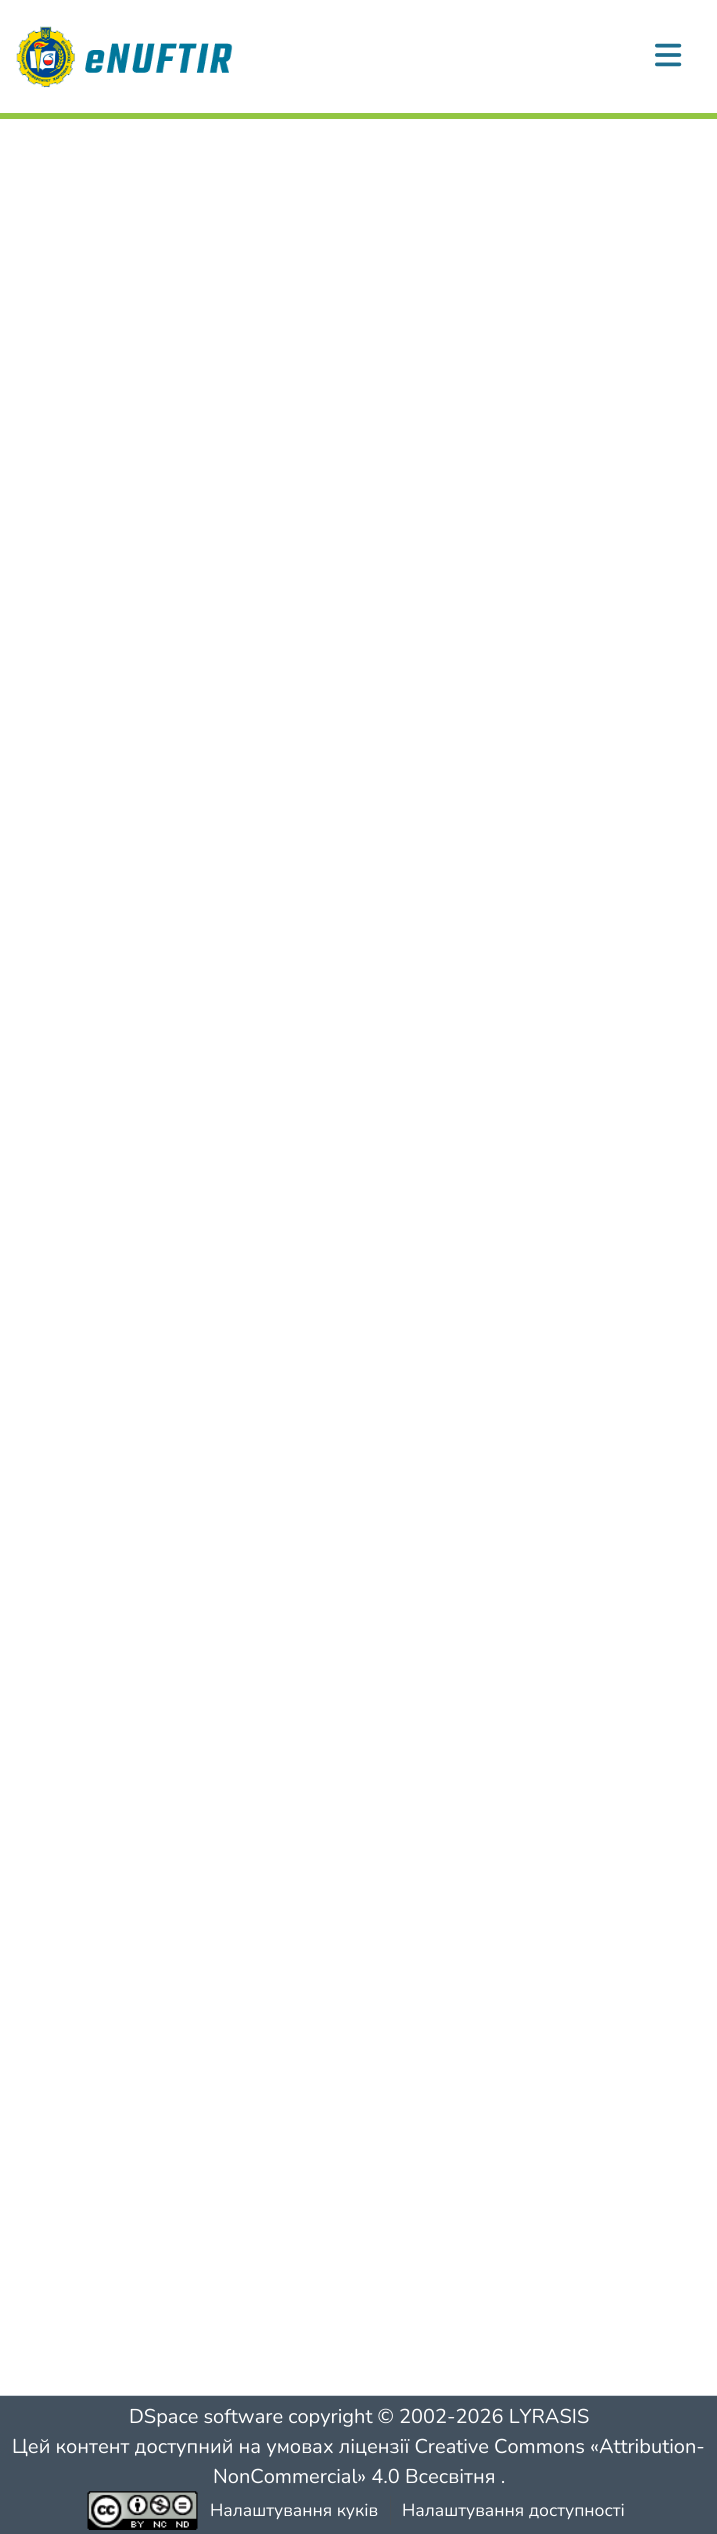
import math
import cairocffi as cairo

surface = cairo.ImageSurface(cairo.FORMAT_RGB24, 717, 2534)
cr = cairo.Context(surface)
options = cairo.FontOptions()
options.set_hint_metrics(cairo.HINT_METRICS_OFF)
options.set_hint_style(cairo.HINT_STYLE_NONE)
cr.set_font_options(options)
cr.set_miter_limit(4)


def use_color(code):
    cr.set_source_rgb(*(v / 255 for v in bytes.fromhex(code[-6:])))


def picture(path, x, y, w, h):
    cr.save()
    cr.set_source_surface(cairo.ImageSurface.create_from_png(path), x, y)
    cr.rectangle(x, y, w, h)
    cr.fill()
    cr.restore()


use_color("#ffffff")
cr.paint()
use_color("#92c642")
cr.rectangle(0, 113, 717, 6)
cr.fill()
picture("img1.png", 16, 26, 217, 62)
picture("img2.png", 655, 43, 27, 24)
use_color("#43515f")
cr.rectangle(0, 2396, 717, 138)
cr.fill()
use_color("#ced4da")
cr.rectangle(0, 2395, 717, 1)
cr.fill()
cr.select_font_face("Nunito")
cr.set_font_size(20)
use_color("#ffffff")
cr.move_to(129, 2423)
cr.show_text("DSpace software copyright © 2002-2026 LYRASIS")
cr.move_to(12, 2453)
cr.show_text("Цей контент доступний на умовах ліцензії Creative Commons «Attribution-")
cr.move_to(213, 2483)
cr.show_text("NonCommercial» 4.0 Всесвітня .")
picture("img3.png", 87, 2491, 111, 39)
cr.set_font_size(17.5)
cr.move_to(210, 2516)
cr.show_text("Налаштування куків")
use_color("#495057")
cr.rectangle(390, 2496, 1, 29)
cr.fill()
use_color("#ffffff")
cr.move_to(402, 2516)
cr.show_text("Налаштування доступності")
surface.write_to_png("result.png")
